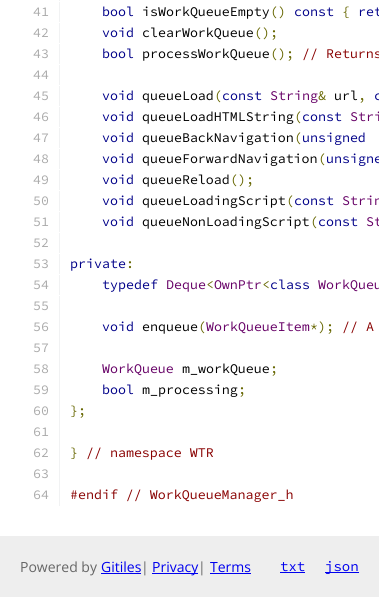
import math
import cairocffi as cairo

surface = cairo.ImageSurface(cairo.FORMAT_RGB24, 379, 597)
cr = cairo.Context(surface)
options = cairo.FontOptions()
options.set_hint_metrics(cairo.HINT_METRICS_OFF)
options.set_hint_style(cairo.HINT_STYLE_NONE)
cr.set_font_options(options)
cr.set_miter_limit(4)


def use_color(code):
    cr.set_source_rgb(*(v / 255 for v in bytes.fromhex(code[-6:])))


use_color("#ffffff")
cr.paint()
use_color("#f1f2f3")
cr.rectangle(59, 0, 1, 1)
cr.fill()
cr.rectangle(59, 2, 1, 20)
cr.fill()
cr.select_font_face("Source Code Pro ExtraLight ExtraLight")
cr.set_font_size(13.3)
use_color("#aaaaaa")
cr.move_to(33, 16)
cr.show_text("41")
use_color("#000088")
cr.move_to(102, 16)
cr.show_text("bool")
use_color("#000000")
cr.move_to(142, 16)
cr.show_text("isWorkQueueEmpty")
use_color("#666600")
cr.move_to(270, 16)
cr.show_text("()")
use_color("#000088")
cr.move_to(294, 16)
cr.show_text("const")
use_color("#666600")
cr.move_to(342, 16)
cr.show_text("{")
use_color("#000088")
cr.move_to(358, 16)
cr.show_text("ret")
use_color("#f1f2f3")
cr.rectangle(59, 23, 1, 20)
cr.fill()
use_color("#aaaaaa")
cr.move_to(33, 37)
cr.show_text("42")
use_color("#000088")
cr.move_to(102, 37)
cr.show_text("void")
use_color("#000000")
cr.move_to(142, 37)
cr.show_text("clearWorkQueue")
use_color("#666600")
cr.move_to(254, 37)
cr.show_text("();")
use_color("#f1f2f3")
cr.rectangle(59, 44, 1, 20)
cr.fill()
use_color("#aaaaaa")
cr.move_to(33, 58)
cr.show_text("43")
use_color("#000088")
cr.move_to(102, 58)
cr.show_text("bool")
use_color("#000000")
cr.move_to(142, 58)
cr.show_text("processWorkQueue")
use_color("#666600")
cr.move_to(270, 58)
cr.show_text("();")
use_color("#880000")
cr.move_to(302, 58)
cr.show_text("// Returns")
use_color("#f1f2f3")
cr.rectangle(59, 65, 1, 20)
cr.fill()
use_color("#aaaaaa")
cr.move_to(33, 79)
cr.show_text("44")
use_color("#f1f2f3")
cr.rectangle(59, 86, 1, 20)
cr.fill()
use_color("#aaaaaa")
cr.move_to(33, 100)
cr.show_text("45")
use_color("#000088")
cr.move_to(102, 100)
cr.show_text("void")
use_color("#000000")
cr.move_to(142, 100)
cr.show_text("queueLoad")
use_color("#666600")
cr.move_to(214, 100)
cr.show_text("(")
use_color("#000088")
cr.move_to(222, 100)
cr.show_text("const")
use_color("#660066")
cr.move_to(270, 100)
cr.show_text("String")
use_color("#666600")
cr.move_to(318, 100)
cr.show_text("&")
use_color("#000000")
cr.move_to(334, 100)
cr.show_text("url")
use_color("#666600")
cr.move_to(358, 100)
cr.show_text(",")
use_color("#000088")
cr.move_to(374, 100)
cr.show_text("c")
use_color("#f1f2f3")
cr.rectangle(59, 107, 1, 20)
cr.fill()
use_color("#aaaaaa")
cr.move_to(33, 121)
cr.show_text("46")
use_color("#000088")
cr.move_to(102, 121)
cr.show_text("void")
use_color("#000000")
cr.move_to(142, 121)
cr.show_text("queueLoadHTMLString")
use_color("#666600")
cr.move_to(294, 121)
cr.show_text("(")
use_color("#000088")
cr.move_to(302, 121)
cr.show_text("const")
use_color("#660066")
cr.move_to(350, 121)
cr.show_text("Stri")
use_color("#f1f2f3")
cr.rectangle(59, 128, 1, 20)
cr.fill()
use_color("#aaaaaa")
cr.move_to(33, 142)
cr.show_text("47")
use_color("#000088")
cr.move_to(102, 142)
cr.show_text("void")
use_color("#000000")
cr.move_to(142, 142)
cr.show_text("queueBackNavigation")
use_color("#666600")
cr.move_to(294, 142)
cr.show_text("(")
use_color("#000088")
cr.move_to(302, 142)
cr.show_text("unsigned")
use_color("#f1f2f3")
cr.rectangle(59, 149, 1, 20)
cr.fill()
use_color("#aaaaaa")
cr.move_to(33, 163)
cr.show_text("48")
use_color("#000088")
cr.move_to(102, 163)
cr.show_text("void")
use_color("#000000")
cr.move_to(142, 163)
cr.show_text("queueForwardNavigation")
use_color("#666600")
cr.move_to(318, 163)
cr.show_text("(")
use_color("#000088")
cr.move_to(326, 163)
cr.show_text("unsigne")
use_color("#f1f2f3")
cr.rectangle(59, 170, 1, 20)
cr.fill()
use_color("#aaaaaa")
cr.move_to(33, 184)
cr.show_text("49")
use_color("#000088")
cr.move_to(102, 184)
cr.show_text("void")
use_color("#000000")
cr.move_to(142, 184)
cr.show_text("queueReload")
use_color("#666600")
cr.move_to(230, 184)
cr.show_text("();")
use_color("#f1f2f3")
cr.rectangle(59, 191, 1, 20)
cr.fill()
use_color("#aaaaaa")
cr.move_to(33, 205)
cr.show_text("50")
use_color("#000088")
cr.move_to(102, 205)
cr.show_text("void")
use_color("#000000")
cr.move_to(142, 205)
cr.show_text("queueLoadingScript")
use_color("#666600")
cr.move_to(286, 205)
cr.show_text("(")
use_color("#000088")
cr.move_to(294, 205)
cr.show_text("const")
use_color("#660066")
cr.move_to(342, 205)
cr.show_text("Strin")
use_color("#f1f2f3")
cr.rectangle(59, 212, 1, 20)
cr.fill()
use_color("#aaaaaa")
cr.move_to(33, 226)
cr.show_text("51")
use_color("#000088")
cr.move_to(102, 226)
cr.show_text("void")
use_color("#000000")
cr.move_to(142, 226)
cr.show_text("queueNonLoadingScript")
use_color("#666600")
cr.move_to(310, 226)
cr.show_text("(")
use_color("#000088")
cr.move_to(318, 226)
cr.show_text("const")
use_color("#660066")
cr.move_to(366, 226)
cr.show_text("St")
use_color("#f1f2f3")
cr.rectangle(59, 233, 1, 20)
cr.fill()
use_color("#aaaaaa")
cr.move_to(33, 247)
cr.show_text("52")
use_color("#f1f2f3")
cr.rectangle(59, 254, 1, 20)
cr.fill()
use_color("#aaaaaa")
cr.move_to(33, 268)
cr.show_text("53")
use_color("#000088")
cr.move_to(70, 268)
cr.show_text("private")
use_color("#666600")
cr.move_to(126, 268)
cr.show_text(":")
use_color("#f1f2f3")
cr.rectangle(59, 275, 1, 20)
cr.fill()
use_color("#aaaaaa")
cr.move_to(33, 289)
cr.show_text("54")
use_color("#000088")
cr.move_to(102, 289)
cr.show_text("typedef")
use_color("#660066")
cr.move_to(166, 289)
cr.show_text("Deque OwnPtr")
use_color("#000088")
cr.move_to(270, 289)
cr.show_text("class")
use_color("#660066")
cr.move_to(318, 289)
cr.show_text("WorkQueu")
use_color("#666600")
cr.move_to(206, 289)
cr.show_text("<")
cr.move_to(262, 289)
cr.show_text("<")
use_color("#f1f2f3")
cr.rectangle(59, 296, 1, 210)
cr.fill()
use_color("#aaaaaa")
cr.move_to(33, 310)
cr.show_text("55")
cr.move_to(33, 331)
cr.show_text("56")
use_color("#000088")
cr.move_to(102, 331)
cr.show_text("void")
use_color("#000000")
cr.move_to(142, 331)
cr.show_text("enqueue")
use_color("#666600")
cr.move_to(198, 331)
cr.show_text("(")
use_color("#660066")
cr.move_to(206, 331)
cr.show_text("WorkQueueItem")
use_color("#666600")
cr.move_to(310, 331)
cr.show_text("*);")
use_color("#880000")
cr.move_to(342, 331)
cr.show_text("// A")
use_color("#aaaaaa")
cr.move_to(33, 352)
cr.show_text("57")
cr.move_to(33, 373)
cr.show_text("58")
use_color("#660066")
cr.move_to(102, 373)
cr.show_text("WorkQueue")
use_color("#000000")
cr.move_to(182, 373)
cr.show_text("m_workQueue")
use_color("#666600")
cr.move_to(270, 373)
cr.show_text(";")
use_color("#aaaaaa")
cr.move_to(33, 394)
cr.show_text("59")
use_color("#000088")
cr.move_to(102, 394)
cr.show_text("bool")
use_color("#000000")
cr.move_to(142, 394)
cr.show_text("m_processing")
use_color("#666600")
cr.move_to(238, 394)
cr.show_text(";")
use_color("#aaaaaa")
cr.move_to(33, 415)
cr.show_text("60")
use_color("#666600")
cr.move_to(70, 415)
cr.show_text("};")
use_color("#aaaaaa")
cr.move_to(33, 436)
cr.show_text("61")
cr.move_to(33, 457)
cr.show_text("62")
use_color("#666600")
cr.move_to(70, 457)
cr.show_text("}")
use_color("#880000")
cr.move_to(86, 457)
cr.show_text("// namespace WTR")
use_color("#aaaaaa")
cr.move_to(33, 478)
cr.show_text("63")
cr.move_to(33, 499)
cr.show_text("64")
use_color("#880000")
cr.move_to(70, 499)
cr.show_text("#endif // WorkQueueManager_h")
use_color("#eeeeee")
cr.rectangle(0, 536, 379, 61)
cr.fill()
cr.select_font_face("Open Sans")
cr.set_font_size(14)
use_color("#666666")
cr.move_to(20, 572)
cr.show_text("Powered by")
use_color("#0000ee")
cr.move_to(101, 572)
cr.show_text("Gitiles")
cr.rectangle(101, 573, 40, 1)
cr.fill()
use_color("#666666")
cr.move_to(141, 572)
cr.show_text("|")
use_color("#0000ee")
cr.rectangle(152, 573, 46, 1)
cr.fill()
cr.move_to(152, 572)
cr.show_text("Privacy")
use_color("#666666")
cr.move_to(198, 572)
cr.show_text("|")
use_color("#0000ee")
cr.move_to(210, 572)
cr.show_text("Terms")
cr.rectangle(210, 573, 41, 1)
cr.fill()
cr.select_font_face("Source Code Pro ExtraLight ExtraLight")
cr.move_to(280, 571)
cr.show_text("txt")
cr.rectangle(280, 572, 25, 1)
cr.fill()
cr.rectangle(325, 572, 34, 1)
cr.fill()
cr.move_to(325, 571)
cr.show_text("json")
surface.write_to_png("result.png")
